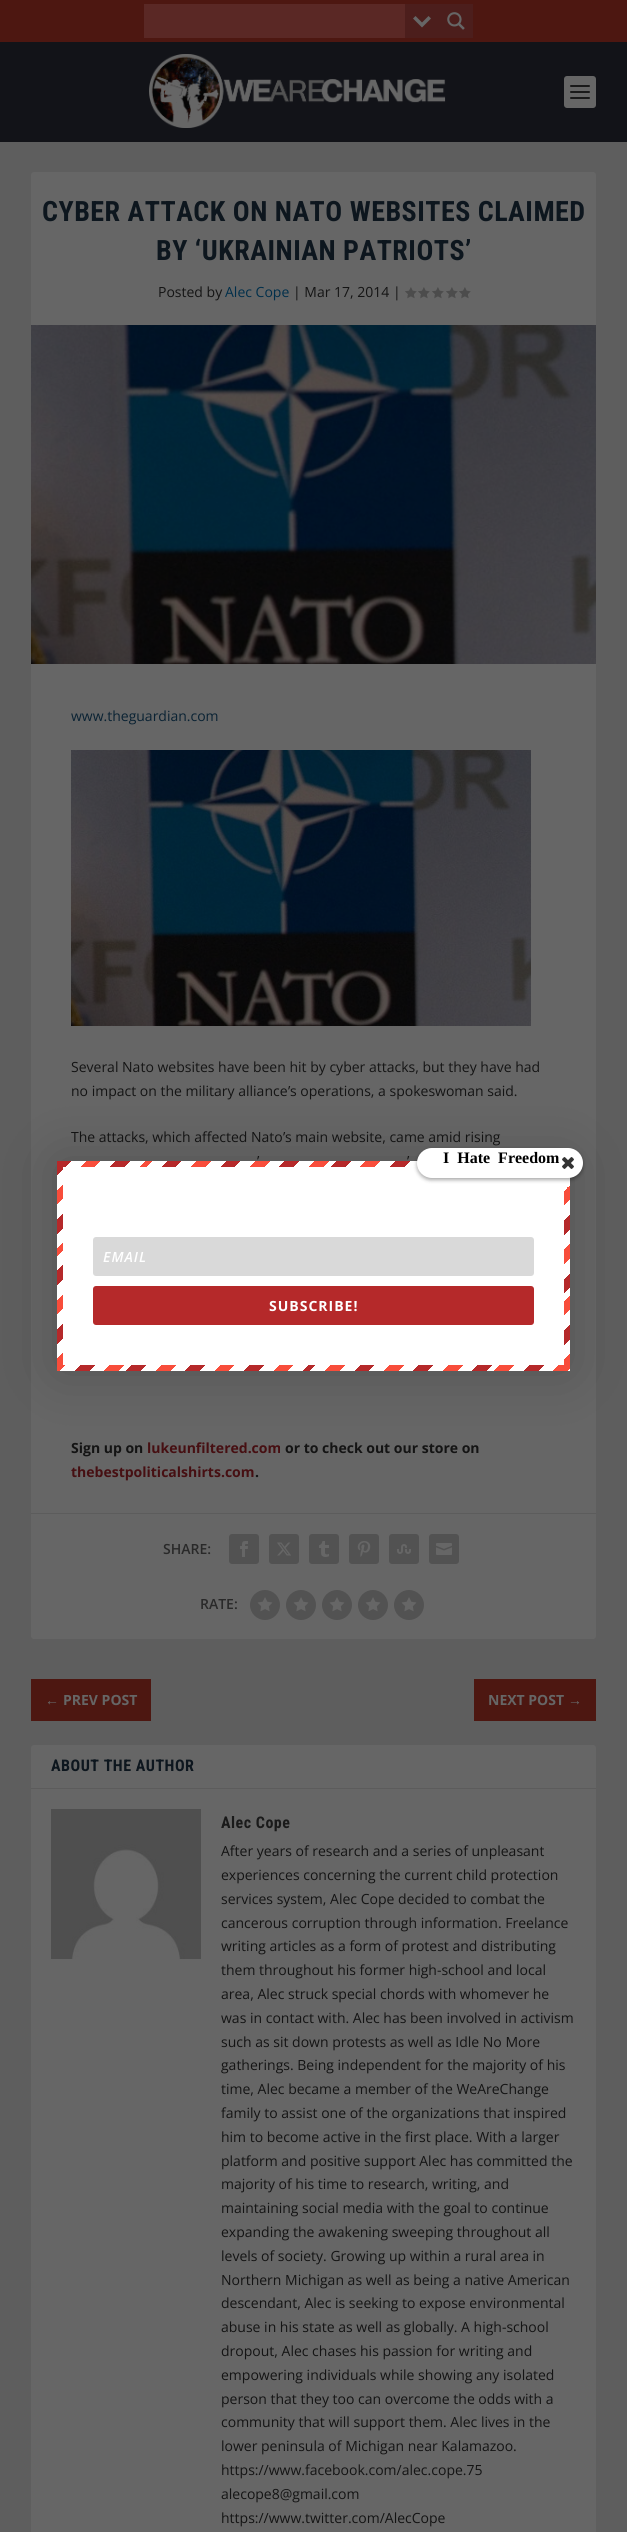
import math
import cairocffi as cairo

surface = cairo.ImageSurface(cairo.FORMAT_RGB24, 627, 2532)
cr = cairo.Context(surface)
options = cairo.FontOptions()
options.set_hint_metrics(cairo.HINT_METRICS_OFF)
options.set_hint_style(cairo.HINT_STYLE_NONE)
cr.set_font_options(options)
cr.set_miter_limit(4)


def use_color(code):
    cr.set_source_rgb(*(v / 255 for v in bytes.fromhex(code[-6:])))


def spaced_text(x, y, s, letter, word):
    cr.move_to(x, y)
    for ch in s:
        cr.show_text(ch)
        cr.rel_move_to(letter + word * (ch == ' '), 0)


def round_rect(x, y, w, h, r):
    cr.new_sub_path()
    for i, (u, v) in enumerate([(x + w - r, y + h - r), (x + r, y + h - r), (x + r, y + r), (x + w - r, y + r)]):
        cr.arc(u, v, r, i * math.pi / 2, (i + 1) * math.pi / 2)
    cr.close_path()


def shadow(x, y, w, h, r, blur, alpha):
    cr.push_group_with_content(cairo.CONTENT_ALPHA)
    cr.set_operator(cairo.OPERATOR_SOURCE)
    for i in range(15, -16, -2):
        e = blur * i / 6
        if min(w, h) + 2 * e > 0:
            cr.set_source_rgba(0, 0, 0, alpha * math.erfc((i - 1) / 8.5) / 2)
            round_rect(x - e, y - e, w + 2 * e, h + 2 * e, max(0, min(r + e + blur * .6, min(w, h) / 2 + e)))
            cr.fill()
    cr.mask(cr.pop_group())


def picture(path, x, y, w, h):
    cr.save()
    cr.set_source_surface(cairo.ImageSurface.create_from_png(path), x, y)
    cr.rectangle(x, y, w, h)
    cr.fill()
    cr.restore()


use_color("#5e5e5e")
cr.paint()
use_color("#4d1711")
cr.rectangle(0, 0, 627, 42)
cr.fill()
use_color("#5a2825")
cr.rectangle(144, 4, 261, 34)
cr.fill()
use_color("#4c1e1c")
cr.rectangle(405, 4, 68, 34)
cr.fill()
use_color("#666666")
cr.new_path()
cr.move_to(428.5, 16)
cr.line_to(431, 18.5)
cr.line_to(422, 27.5)
cr.line_to(413, 18.5)
cr.line_to(415.5, 16)
cr.line_to(422, 22.5)
cr.close_path()
cr.fill()
picture("img1.png", 447, 12, 18, 18)
use_color("#121318")
cr.rectangle(0, 42, 627, 100)
cr.fill()
picture("img2.png", 149, 54, 297, 74)
use_color("#666666")
round_rect(564, 76, 32, 32, 3)
cr.fill()
use_color("#1a1a1a")
round_rect(570, 85, 20, 2, 1)
cr.fill()
round_rect(570, 91, 20, 2, 1)
cr.fill()
round_rect(570, 97, 20, 2, 1)
cr.fill()
use_color("#666666")
round_rect(31, 172, 565, 1467, 3)
cr.fill()
cr.select_font_face("Roboto Condensed", cairo.FONT_SLANT_NORMAL, cairo.FONT_WEIGHT_BOLD)
cr.set_font_size(28)
use_color("#0d161e")
spaced_text(42, 221, "CYBER ATTACK ON NATO WEBSITES CLAIMED", 0.5, 0)
spaced_text(156, 260, "BY ‘UKRAINIAN PATRIOTS’", 0.5, 0)
cr.select_font_face("Open Sans")
cr.set_font_size(14)
use_color("#141414")
cr.move_to(158, 297)
cr.show_text("Posted by")
use_color("#002f4b")
cr.move_to(225, 297)
cr.show_text("Alec Cope")
use_color("#141414")
cr.move_to(293, 297)
cr.show_text("| Mar 17, 2014 |")
picture("img3.png", 405, 287, 12, 12)
picture("img3.png", 418, 287, 12, 12)
picture("img3.png", 432, 287, 12, 12)
picture("img3.png", 446, 287, 12, 12)
picture("img3.png", 459, 287, 12, 12)
picture("img4.png", 31, 325, 565, 339)
use_color("#0a2233")
cr.move_to(71, 721)
cr.show_text("www.theguardian.com")
picture("img5.png", 71, 750, 460, 276)
use_color("#141414")
cr.move_to(71, 1072)
cr.show_text("Several Nato websites have been hit by cyber attacks, but they have had")
cr.move_to(71, 1096)
cr.show_text("no impact on the military alliance")
cr.select_font_face("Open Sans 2")
cr.move_to(288, 1096)
cr.show_text("’")
cr.select_font_face("Open Sans")
cr.move_to(290, 1096)
cr.show_text("s operations, a spokeswoman said.")
cr.move_to(71, 1142)
cr.show_text("The attacks, which affected Nato")
cr.select_font_face("Open Sans 2")
cr.move_to(283, 1142)
cr.show_text("’")
cr.select_font_face("Open Sans")
cr.move_to(285, 1142)
cr.show_text("s main website, came amid rising")
cr.select_font_face("Open Sans 2")
cr.move_to(257, 1166)
cr.show_text("’")
cr.move_to(407, 1166)
cr.show_text("’")
cr.select_font_face("Open Sans", cairo.FONT_SLANT_NORMAL, cairo.FONT_WEIGHT_BOLD)
cr.move_to(71, 1453)
cr.show_text("Sign up on")
use_color("#460f12")
cr.move_to(147, 1453)
cr.show_text("lukeunfiltered.com")
use_color("#141414")
cr.move_to(285, 1453)
cr.show_text("or to check out our store on")
use_color("#460f12")
cr.move_to(71, 1477)
cr.show_text("thebestpoliticalshirts.com")
use_color("#141414")
cr.move_to(255, 1477)
cr.show_text(".")
use_color("#5c5c5c")
cr.rectangle(31, 1513, 565, 1)
cr.fill()
cr.select_font_face("Open Sans SemiBold")
use_color("#292929")
cr.move_to(163, 1554)
cr.show_text("SHARE:")
use_color("#525252")
round_rect(229, 1534, 30, 30, 3)
cr.fill()
picture("img6.png", 240, 1541, 8, 16)
round_rect(269, 1534, 30, 30, 3)
cr.fill()
picture("img7.png", 277, 1542, 14, 14)
round_rect(309, 1534, 30, 30, 3)
cr.fill()
picture("img8.png", 319, 1541, 10, 16)
round_rect(349, 1534, 30, 30, 3)
cr.fill()
picture("img9.png", 357, 1541, 14, 16)
round_rect(389, 1534, 30, 30, 3)
cr.fill()
picture("img10.png", 397, 1544, 14, 10)
round_rect(429, 1534, 30, 30, 3)
cr.fill()
picture("img11.png", 436, 1543, 16, 12)
use_color("#292929")
cr.move_to(200, 1609)
cr.show_text("RATE:")
use_color("#525252")
cr.new_path()
cr.arc(265, 1605, 15, 0, 2 * math.pi)
cr.fill()
picture("img12.png", 257, 1597, 16, 15)
cr.arc(301, 1605, 15, 0, 2 * math.pi)
cr.fill()
picture("img12.png", 293, 1597, 16, 15)
cr.arc(337, 1605, 15, 0, 2 * math.pi)
cr.fill()
picture("img12.png", 329, 1597, 16, 15)
cr.arc(373, 1605, 15, 0, 2 * math.pi)
cr.fill()
picture("img12.png", 365, 1597, 16, 15)
cr.arc(409, 1605, 15, 0, 2 * math.pi)
cr.fill()
picture("img12.png", 401, 1597, 16, 15)
use_color("#4d1711")
cr.rectangle(31, 1679, 120, 42)
cr.fill()
cr.select_font_face("Liberation Sans", cairo.FONT_SLANT_NORMAL, cairo.FONT_WEIGHT_BOLD)
use_color("#666666")
cr.move_to(45, 1705)
cr.show_text("←")
cr.select_font_face("Open Sans", cairo.FONT_SLANT_NORMAL, cairo.FONT_WEIGHT_BOLD)
cr.move_to(63, 1705)
cr.show_text("PREV POST")
use_color("#4d1711")
cr.rectangle(474, 1679, 122, 42)
cr.fill()
use_color("#666666")
cr.move_to(488, 1705)
cr.show_text("NEXT POST")
cr.select_font_face("Liberation Sans", cairo.FONT_SLANT_NORMAL, cairo.FONT_WEIGHT_BOLD)
cr.move_to(568, 1705)
cr.show_text("→")
round_rect(31, 1745, 565, 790, 3)
cr.fill()
use_color("#5c5c5c")
cr.rectangle(31, 1788, 565, 1)
cr.fill()
cr.select_font_face("Roboto Condensed", cairo.FONT_SLANT_NORMAL, cairo.FONT_WEIGHT_BOLD)
cr.set_font_size(16)
use_color("#0d161e")
spaced_text(51, 1771, "ABOUT THE AUTHOR", 0.5, 0)
picture("img13.png", 51, 1809, 150, 150)
use_color("#1a1a1a")
spaced_text(221, 1828, "Alec Cope", 0.5, 0)
cr.select_font_face("Open Sans")
cr.set_font_size(14)
use_color("#141414")
cr.move_to(221, 1856)
cr.show_text("After years of research and a series of unpleasant")
cr.move_to(221, 1880)
cr.show_text("experiences concerning the current child protection")
cr.move_to(221, 1904)
cr.show_text("services system, Alec Cope decided to combat the")
cr.move_to(221, 1928)
cr.show_text("cancerous corruption through information. Freelance")
cr.move_to(221, 1951)
cr.show_text("writing articles as a form of protest and distributing")
cr.move_to(221, 1975)
cr.show_text("them throughout his former high-school and local")
cr.move_to(221, 1999)
cr.show_text("area, Alec struck special chords with whomever he")
cr.move_to(221, 2023)
cr.show_text("was in contact with. Alec has been involved in activism")
cr.move_to(221, 2047)
cr.show_text("such as sit down protests as well as Idle No More")
cr.move_to(221, 2070)
cr.show_text("gatherings. Being independent for the majority of his")
cr.move_to(221, 2094)
cr.show_text("time, Alec became a member of the WeAreChange")
cr.move_to(221, 2118)
cr.show_text("family to assist one of the organizations that inspired")
cr.move_to(221, 2142)
cr.show_text("him to become active in the first place. With a larger")
cr.move_to(221, 2166)
cr.show_text("platform and positive support Alec has committed the")
cr.move_to(221, 2189)
cr.show_text("majority of his time to research, writing, and")
cr.move_to(221, 2213)
cr.show_text("maintaining social media with the goal to continue")
cr.move_to(221, 2237)
cr.show_text("expanding the awakening sweeping throughout all")
cr.move_to(221, 2261)
cr.show_text("levels of society. Growing up within a rural area in")
cr.move_to(221, 2285)
cr.show_text("Northern Michigan as well as being a native American")
cr.move_to(221, 2308)
cr.show_text("descendant, Alec is seeking to expose environmental")
cr.move_to(221, 2332)
cr.show_text("abuse in his state as well as globally. A high-school")
cr.move_to(221, 2356)
cr.show_text("dropout, Alec chases his passion for writing and")
cr.move_to(221, 2380)
cr.show_text("empowering individuals while showing any isolated")
cr.move_to(221, 2404)
cr.show_text("person that they too can overcome the odds with a")
cr.move_to(221, 2427)
cr.show_text("community that will support them. Alec lives in the")
cr.move_to(221, 2451)
cr.show_text("lower peninsula of Michigan near Kalamazoo.")
cr.move_to(221, 2475)
cr.show_text("https://www.facebook.com/alec.cope.75")
cr.move_to(221, 2499)
cr.show_text("alecope8@gmail.com")
cr.move_to(221, 2523)
cr.show_text("https://www.twitter.com/AlecCope")
use_color("#000000")
shadow(57, 1161, 513, 210, 0, 30, 0.2)
gradient = cairo.LinearGradient(133, 1085, 500, 1453)
gradient.add_color_stop_rgba(0, 0.71, 0.161, 0.165, 1)
gradient.add_color_stop_rgba(0.02, 0.71, 0.161, 0.165, 1)
gradient.add_color_stop_rgba(0.02, 1, 1, 1, 1)
gradient.add_color_stop_rgba(0.04, 1, 1, 1, 1)
gradient.add_color_stop_rgba(0.04, 0.973, 0.302, 0.231, 1)
gradient.add_color_stop_rgba(0.06, 0.973, 0.302, 0.231, 1)
gradient.add_color_stop_rgba(0.06, 1, 1, 1, 1)
gradient.add_color_stop_rgba(0.08, 1, 1, 1, 1)
gradient.add_color_stop_rgba(0.08, 0.71, 0.161, 0.165, 1)
gradient.add_color_stop_rgba(0.1, 0.71, 0.161, 0.165, 1)
gradient.add_color_stop_rgba(0.1, 1, 1, 1, 1)
gradient.add_color_stop_rgba(0.12, 1, 1, 1, 1)
gradient.add_color_stop_rgba(0.12, 0.973, 0.302, 0.231, 1)
gradient.add_color_stop_rgba(0.13, 0.973, 0.302, 0.231, 1)
gradient.add_color_stop_rgba(0.13, 1, 1, 1, 1)
gradient.add_color_stop_rgba(0.15, 1, 1, 1, 1)
gradient.add_color_stop_rgba(0.15, 0.71, 0.161, 0.165, 1)
gradient.add_color_stop_rgba(0.17, 0.71, 0.161, 0.165, 1)
gradient.add_color_stop_rgba(0.17, 1, 1, 1, 1)
gradient.add_color_stop_rgba(0.19, 1, 1, 1, 1)
gradient.add_color_stop_rgba(0.19, 0.973, 0.302, 0.231, 1)
gradient.add_color_stop_rgba(0.21, 0.973, 0.302, 0.231, 1)
gradient.add_color_stop_rgba(0.21, 1, 1, 1, 1)
gradient.add_color_stop_rgba(0.23, 1, 1, 1, 1)
gradient.add_color_stop_rgba(0.23, 0.71, 0.161, 0.165, 1)
gradient.add_color_stop_rgba(0.25, 0.71, 0.161, 0.165, 1)
gradient.add_color_stop_rgba(0.25, 1, 1, 1, 1)
gradient.add_color_stop_rgba(0.27, 1, 1, 1, 1)
gradient.add_color_stop_rgba(0.27, 0.973, 0.302, 0.231, 1)
gradient.add_color_stop_rgba(0.29, 0.973, 0.302, 0.231, 1)
gradient.add_color_stop_rgba(0.29, 1, 1, 1, 1)
gradient.add_color_stop_rgba(0.31, 1, 1, 1, 1)
gradient.add_color_stop_rgba(0.31, 0.71, 0.161, 0.165, 1)
gradient.add_color_stop_rgba(0.33, 0.71, 0.161, 0.165, 1)
gradient.add_color_stop_rgba(0.33, 1, 1, 1, 1)
gradient.add_color_stop_rgba(0.35, 1, 1, 1, 1)
gradient.add_color_stop_rgba(0.35, 0.973, 0.302, 0.231, 1)
gradient.add_color_stop_rgba(0.37, 0.973, 0.302, 0.231, 1)
gradient.add_color_stop_rgba(0.37, 1, 1, 1, 1)
gradient.add_color_stop_rgba(0.38, 1, 1, 1, 1)
gradient.add_color_stop_rgba(0.38, 0.71, 0.161, 0.165, 1)
gradient.add_color_stop_rgba(0.4, 0.71, 0.161, 0.165, 1)
gradient.add_color_stop_rgba(0.4, 1, 1, 1, 1)
gradient.add_color_stop_rgba(0.42, 1, 1, 1, 1)
gradient.add_color_stop_rgba(0.42, 0.973, 0.302, 0.231, 1)
gradient.add_color_stop_rgba(0.44, 0.973, 0.302, 0.231, 1)
gradient.add_color_stop_rgba(0.44, 1, 1, 1, 1)
gradient.add_color_stop_rgba(0.46, 1, 1, 1, 1)
gradient.add_color_stop_rgba(0.46, 0.71, 0.161, 0.165, 1)
gradient.add_color_stop_rgba(0.48, 0.71, 0.161, 0.165, 1)
gradient.add_color_stop_rgba(0.48, 1, 1, 1, 1)
gradient.add_color_stop_rgba(0.5, 1, 1, 1, 1)
gradient.add_color_stop_rgba(0.5, 0.973, 0.302, 0.231, 1)
gradient.add_color_stop_rgba(0.52, 0.973, 0.302, 0.231, 1)
gradient.add_color_stop_rgba(0.52, 1, 1, 1, 1)
gradient.add_color_stop_rgba(0.54, 1, 1, 1, 1)
gradient.add_color_stop_rgba(0.54, 0.71, 0.161, 0.165, 1)
gradient.add_color_stop_rgba(0.56, 0.71, 0.161, 0.165, 1)
gradient.add_color_stop_rgba(0.56, 1, 1, 1, 1)
gradient.add_color_stop_rgba(0.58, 1, 1, 1, 1)
gradient.add_color_stop_rgba(0.58, 0.973, 0.302, 0.231, 1)
gradient.add_color_stop_rgba(0.6, 0.973, 0.302, 0.231, 1)
gradient.add_color_stop_rgba(0.6, 1, 1, 1, 1)
gradient.add_color_stop_rgba(0.62, 1, 1, 1, 1)
gradient.add_color_stop_rgba(0.62, 0.71, 0.161, 0.165, 1)
gradient.add_color_stop_rgba(0.63, 0.71, 0.161, 0.165, 1)
gradient.add_color_stop_rgba(0.63, 1, 1, 1, 1)
gradient.add_color_stop_rgba(0.65, 1, 1, 1, 1)
gradient.add_color_stop_rgba(0.65, 0.973, 0.302, 0.231, 1)
gradient.add_color_stop_rgba(0.67, 0.973, 0.302, 0.231, 1)
gradient.add_color_stop_rgba(0.67, 1, 1, 1, 1)
gradient.add_color_stop_rgba(0.69, 1, 1, 1, 1)
gradient.add_color_stop_rgba(0.69, 0.71, 0.161, 0.165, 1)
gradient.add_color_stop_rgba(0.71, 0.71, 0.161, 0.165, 1)
gradient.add_color_stop_rgba(0.71, 1, 1, 1, 1)
gradient.add_color_stop_rgba(0.73, 1, 1, 1, 1)
gradient.add_color_stop_rgba(0.73, 0.973, 0.302, 0.231, 1)
gradient.add_color_stop_rgba(0.75, 0.973, 0.302, 0.231, 1)
gradient.add_color_stop_rgba(0.75, 1, 1, 1, 1)
gradient.add_color_stop_rgba(0.77, 1, 1, 1, 1)
gradient.add_color_stop_rgba(0.77, 0.71, 0.161, 0.165, 1)
gradient.add_color_stop_rgba(0.79, 0.71, 0.161, 0.165, 1)
gradient.add_color_stop_rgba(0.79, 1, 1, 1, 1)
gradient.add_color_stop_rgba(0.81, 1, 1, 1, 1)
gradient.add_color_stop_rgba(0.81, 0.973, 0.302, 0.231, 1)
gradient.add_color_stop_rgba(0.83, 0.973, 0.302, 0.231, 1)
gradient.add_color_stop_rgba(0.83, 1, 1, 1, 1)
gradient.add_color_stop_rgba(0.85, 1, 1, 1, 1)
gradient.add_color_stop_rgba(0.85, 0.71, 0.161, 0.165, 1)
gradient.add_color_stop_rgba(0.87, 0.71, 0.161, 0.165, 1)
gradient.add_color_stop_rgba(0.87, 1, 1, 1, 1)
gradient.add_color_stop_rgba(0.88, 1, 1, 1, 1)
gradient.add_color_stop_rgba(0.88, 0.973, 0.302, 0.231, 1)
gradient.add_color_stop_rgba(0.9, 0.973, 0.302, 0.231, 1)
gradient.add_color_stop_rgba(0.9, 1, 1, 1, 1)
gradient.add_color_stop_rgba(0.92, 1, 1, 1, 1)
gradient.add_color_stop_rgba(0.92, 0.71, 0.161, 0.165, 1)
gradient.add_color_stop_rgba(0.94, 0.71, 0.161, 0.165, 1)
gradient.add_color_stop_rgba(0.94, 1, 1, 1, 1)
gradient.add_color_stop_rgba(0.96, 1, 1, 1, 1)
gradient.add_color_stop_rgba(0.96, 0.973, 0.302, 0.231, 1)
gradient.add_color_stop_rgba(0.98, 0.973, 0.302, 0.231, 1)
gradient.add_color_stop_rgba(0.98, 1, 1, 1, 1)
gradient.add_color_stop_rgba(1, 1, 1, 1, 1)
cr.set_source(gradient)
cr.rectangle(57, 1161, 513, 210)
cr.fill()
use_color("#ffffff")
cr.rectangle(63, 1167, 501, 198)
cr.fill()
use_color("#000000")
shadow(417, 1150, 166, 30, 15, 2, 0.34)
use_color("#ffffff")
round_rect(417, 1148, 166, 30, 15)
cr.fill()
cr.select_font_face("Liberation Serif", cairo.FONT_SLANT_NORMAL, cairo.FONT_WEIGHT_BOLD)
cr.set_font_size(16)
use_color("#000000")
spaced_text(443, 1163, "I Hate Freedom", 0, 4)
picture("img14.png", 562, 1157, 12, 12)
use_color("#d9d9d9")
round_rect(93, 1237, 441, 39, 3)
cr.fill()
cr.select_font_face("Open Sans SemiBold", cairo.FONT_SLANT_ITALIC)
cr.set_font_size(14)
use_color("#ffffff")
spaced_text(103, 1262, "EMAIL", 1, 0)
use_color("#b5292a")
round_rect(93, 1286, 441, 39, 3)
cr.fill()
cr.select_font_face("Open Sans", cairo.FONT_SLANT_NORMAL, cairo.FONT_WEIGHT_BOLD)
use_color("#ffffff")
spaced_text(269, 1311, "SUBSCRIBE!", 1, 0)
surface.write_to_png("result.png")
